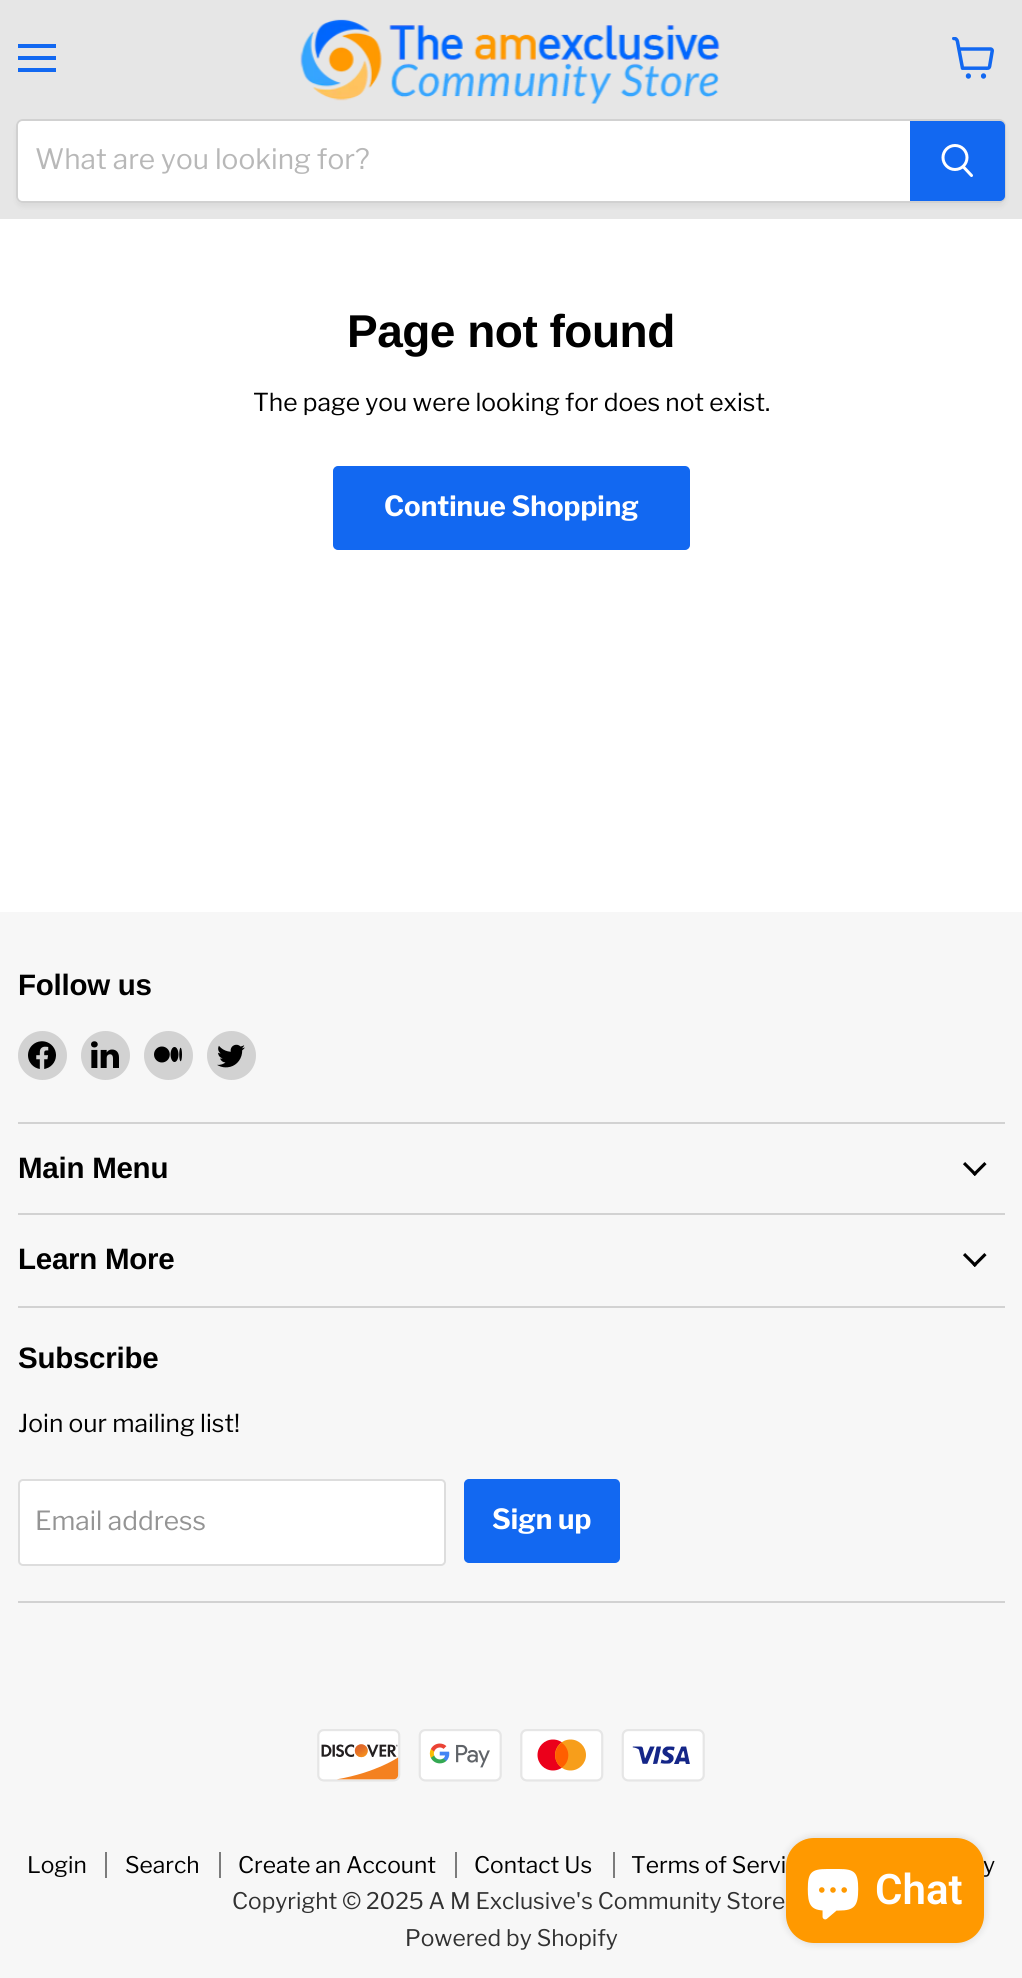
import math
import cairocffi as cairo

surface = cairo.ImageSurface(cairo.FORMAT_RGB24, 1022, 1978)
cr = cairo.Context(surface)
options = cairo.FontOptions()
options.set_hint_metrics(cairo.HINT_METRICS_OFF)
options.set_hint_style(cairo.HINT_STYLE_NONE)
cr.set_font_options(options)
cr.set_miter_limit(4)


def use_color(code):
    cr.set_source_rgb(*(v / 255 for v in bytes.fromhex(code[-6:])))


def spaced_text(x, y, s, letter, word):
    cr.move_to(x, y)
    for ch in s:
        cr.show_text(ch)
        cr.rel_move_to(letter + word * (ch == ' '), 0)


def round_rect(x, y, w, h, r):
    cr.new_sub_path()
    for i, (u, v) in enumerate([(x + w - r, y + h - r), (x + r, y + h - r), (x + r, y + r), (x + w - r, y + r)]):
        cr.arc(u, v, r, i * math.pi / 2, (i + 1) * math.pi / 2)
    cr.close_path()


def shadow(x, y, w, h, r, blur, alpha):
    cr.push_group_with_content(cairo.CONTENT_ALPHA)
    cr.set_operator(cairo.OPERATOR_SOURCE)
    for i in range(15, -16, -2):
        e = blur * i / 6
        if min(w, h) + 2 * e > 0:
            cr.set_source_rgba(0, 0, 0, alpha * math.erfc((i - 1) / 8.5) / 2)
            round_rect(x - e, y - e, w + 2 * e, h + 2 * e, max(0, min(r + e + blur * .6, min(w, h) / 2 + e)))
            cr.fill()
    cr.mask(cr.pop_group())


def picture(path, x, y, w, h):
    cr.save()
    cr.set_source_surface(cairo.ImageSurface.create_from_png(path), x, y)
    cr.rectangle(x, y, w, h)
    cr.fill()
    cr.restore()


use_color("#ffffff")
cr.paint()
use_color("#e6e6e6")
cr.rectangle(0, 0, 1022, 219)
cr.fill()
use_color("#1268f1")
cr.rectangle(18, 44, 38, 4)
cr.fill()
cr.rectangle(18, 56, 38, 4)
cr.fill()
cr.rectangle(18, 68, 38, 4)
cr.fill()
picture("img1.png", 952, 37, 42, 42)
picture("img2.png", 300, 19, 420, 85)
cr.save()
cr.set_fill_rule(cairo.FILL_RULE_EVEN_ODD)
cr.new_path()
cr.move_to(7, 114)
cr.line_to(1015, 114)
cr.line_to(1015, 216)
cr.line_to(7, 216)
cr.close_path()
cr.move_to(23, 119)
cr.line_to(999, 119)
cr.curve_to(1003, 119, 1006, 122, 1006, 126)
cr.line_to(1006, 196)
cr.curve_to(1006, 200, 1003, 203, 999, 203)
cr.line_to(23, 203)
cr.curve_to(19, 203, 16, 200, 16, 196)
cr.line_to(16, 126)
cr.curve_to(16, 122, 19, 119, 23, 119)
cr.close_path()
cr.clip()
use_color("#808080")
shadow(16, 123, 990, 84, 7, 2.5, 0.11)
cr.restore()
round_rect(17, 120, 988, 82, 6)
cr.set_source_rgba(0.502, 0.502, 0.502, 0.2)
cr.stroke()
use_color("#ffffff")
cr.new_path()
cr.move_to(23, 121)
cr.line_to(910, 121)
cr.line_to(910, 201)
cr.line_to(23, 201)
cr.curve_to(20, 201, 18, 199, 18, 196)
cr.line_to(18, 126)
cr.curve_to(18, 123, 20, 121, 23, 121)
cr.close_path()
cr.fill()
cr.select_font_face("Libre Franklin")
cr.set_font_size(28)
use_color("#b8b8b8")
cr.move_to(35, 169)
cr.show_text("What are you looking for?")
use_color("#1268f1")
cr.new_path()
cr.move_to(911, 122)
cr.line_to(1000, 122)
cr.curve_to(1002, 122, 1004, 124, 1004, 126)
cr.line_to(1004, 196)
cr.curve_to(1004, 198, 1002, 200, 1000, 200)
cr.line_to(911, 200)
cr.close_path()
cr.fill_preserve()
cr.stroke()
cr.new_path()
cr.move_to(971.5, 175.5)
cr.line_to(963.5, 167)
use_color("#ffffff")
cr.set_line_width(3)
cr.set_line_cap(cairo.LINE_CAP_ROUND)
cr.stroke()
cr.arc(955, 157.5, 12, 0, 2 * math.pi)
cr.set_line_cap(cairo.LINE_CAP_BUTT)
cr.stroke()
cr.select_font_face("Arimo", cairo.FONT_SLANT_NORMAL, cairo.FONT_WEIGHT_BOLD)
cr.set_font_size(46)
use_color("#000000")
spaced_text(347, 347, "Page not found", -0.5, 0)
cr.select_font_face("Libre Franklin")
cr.set_font_size(24.6)
cr.move_to(253, 411)
cr.show_text("The page you were looking for does not exist.")
use_color("#1268f1")
round_rect(334, 467, 355, 82, 4)
cr.fill_preserve()
cr.set_line_width(2)
cr.stroke()
cr.select_font_face("Libre Franklin", cairo.FONT_SLANT_NORMAL, cairo.FONT_WEIGHT_BOLD)
cr.set_font_size(27.75)
use_color("#ffffff")
cr.move_to(384, 516)
cr.show_text("Continue Shopping")
use_color("#f7f7f7")
cr.rectangle(0, 912, 1022, 1066)
cr.fill()
use_color("#d2d2d2")
cr.rectangle(18, 1122, 987, 2)
cr.fill()
cr.select_font_face("Arimo", cairo.FONT_SLANT_NORMAL, cairo.FONT_WEIGHT_BOLD)
cr.set_font_size(29.5)
use_color("#000000")
spaced_text(18, 995, "Follow us", -0.25, 0)
use_color("#d2d2d2")
cr.new_path()
cr.arc(42.5, 1055.5, 24.5, 0, 2 * math.pi)
cr.fill()
picture("img3.png", 28, 1041, 28, 28)
cr.arc(105.5, 1055.5, 24.5, 0, 2 * math.pi)
cr.fill()
picture("img4.png", 91, 1041, 28, 27)
cr.arc(168.5, 1055.5, 24.5, 0, 2 * math.pi)
cr.fill()
picture("img5.png", 154, 1046, 28, 17)
cr.arc(231.5, 1055.5, 24.5, 0, 2 * math.pi)
cr.fill()
picture("img6.png", 217, 1044, 28, 24)
cr.rectangle(18, 1213, 987, 2)
cr.fill()
use_color("#000000")
spaced_text(18, 1178, "Main Menu", -0.25, 0)
picture("img7.png", 963, 1162, 24, 14)
use_color("#d2d2d2")
cr.rectangle(18, 1306, 987, 2)
cr.fill()
use_color("#000000")
spaced_text(18, 1269, "Learn More", -0.25, 0)
picture("img7.png", 963, 1253, 24, 14)
use_color("#d2d2d2")
cr.rectangle(18, 1601, 987, 2)
cr.fill()
use_color("#000000")
spaced_text(18, 1368, "Subscribe", -0.25, 0)
cr.select_font_face("Libre Franklin")
cr.set_font_size(24.6)
cr.move_to(18, 1432)
cr.show_text("Join our mailing list!")
use_color("#ffffff")
round_rect(19, 1480, 426, 85, 4)
cr.fill_preserve()
use_color("#dddddd")
cr.stroke()
cr.set_font_size(26.25)
use_color("#949494")
cr.move_to(35, 1530)
cr.show_text("Email address")
use_color("#1268f1")
round_rect(465, 1480, 154, 82, 4)
cr.fill_preserve()
cr.stroke()
cr.select_font_face("Libre Franklin", cairo.FONT_SLANT_NORMAL, cairo.FONT_WEIGHT_BOLD)
cr.set_font_size(27.75)
use_color("#ffffff")
cr.move_to(492, 1529)
cr.show_text("Sign up")
picture("img8.png", 317, 1729, 84, 53)
picture("img9.png", 418, 1729, 84, 53)
picture("img10.png", 520, 1729, 84, 53)
picture("img11.png", 621, 1729, 84, 53)
use_color("#7c7c7c")
cr.rectangle(105, 1852, 2, 26)
cr.fill()
cr.select_font_face("Libre Franklin")
cr.set_font_size(22.75)
use_color("#000000")
cr.move_to(27, 1873)
cr.show_text("Login")
use_color("#7c7c7c")
cr.rectangle(219, 1852, 2, 26)
cr.fill()
use_color("#000000")
cr.move_to(125, 1873)
cr.show_text("Search")
use_color("#7c7c7c")
cr.rectangle(455, 1852, 2, 26)
cr.fill()
use_color("#000000")
cr.move_to(238, 1873)
cr.show_text("Create an Account")
use_color("#7c7c7c")
cr.rectangle(613, 1852, 2, 26)
cr.fill()
use_color("#000000")
cr.move_to(474, 1873)
cr.show_text("Contact Us")
cr.move_to(631, 1873)
cr.show_text("Terms of Servi")
cr.move_to(983, 1873)
cr.show_text("y")
use_color("#313131")
cr.move_to(232, 1909)
cr.show_text("Copyright © 2025 A M Exclusive's Community Store")
cr.move_to(405, 1946)
cr.show_text("Powered by Shopify")
use_color("#000000")
shadow(786, 1838, 198, 105, 28, 4.5, 0.15)
use_color("#ff9900")
round_rect(786, 1838, 198, 105, 28)
cr.fill()
picture("img12.png", 807, 1869, 52, 51)
cr.select_font_face("Roboto SemiBold")
cr.set_font_size(42)
use_color("#ffffff")
cr.move_to(875, 1904)
cr.show_text("Chat")
surface.write_to_png("result.png")
